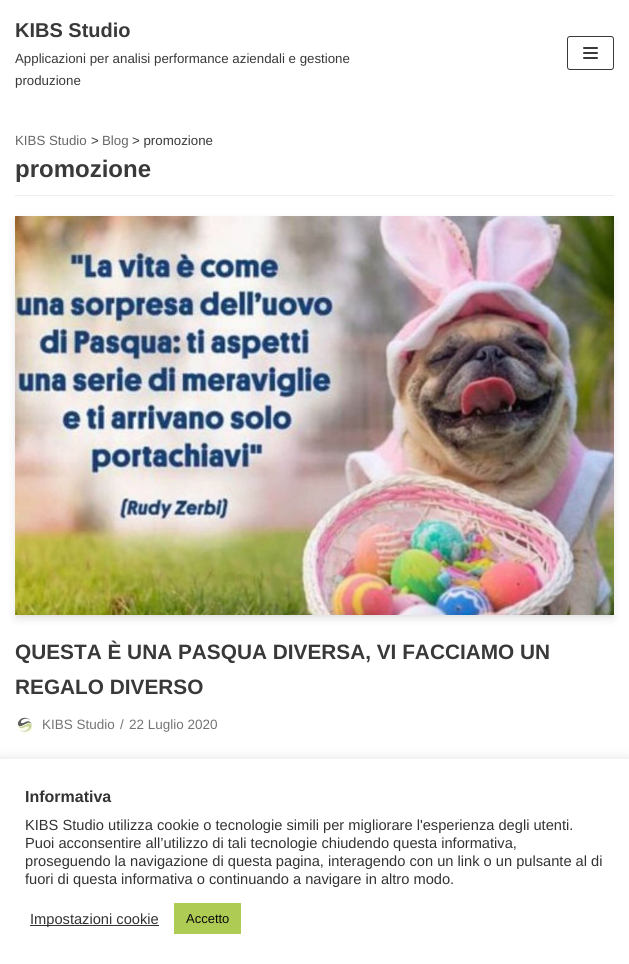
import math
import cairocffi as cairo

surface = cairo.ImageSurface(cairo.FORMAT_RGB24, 629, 964)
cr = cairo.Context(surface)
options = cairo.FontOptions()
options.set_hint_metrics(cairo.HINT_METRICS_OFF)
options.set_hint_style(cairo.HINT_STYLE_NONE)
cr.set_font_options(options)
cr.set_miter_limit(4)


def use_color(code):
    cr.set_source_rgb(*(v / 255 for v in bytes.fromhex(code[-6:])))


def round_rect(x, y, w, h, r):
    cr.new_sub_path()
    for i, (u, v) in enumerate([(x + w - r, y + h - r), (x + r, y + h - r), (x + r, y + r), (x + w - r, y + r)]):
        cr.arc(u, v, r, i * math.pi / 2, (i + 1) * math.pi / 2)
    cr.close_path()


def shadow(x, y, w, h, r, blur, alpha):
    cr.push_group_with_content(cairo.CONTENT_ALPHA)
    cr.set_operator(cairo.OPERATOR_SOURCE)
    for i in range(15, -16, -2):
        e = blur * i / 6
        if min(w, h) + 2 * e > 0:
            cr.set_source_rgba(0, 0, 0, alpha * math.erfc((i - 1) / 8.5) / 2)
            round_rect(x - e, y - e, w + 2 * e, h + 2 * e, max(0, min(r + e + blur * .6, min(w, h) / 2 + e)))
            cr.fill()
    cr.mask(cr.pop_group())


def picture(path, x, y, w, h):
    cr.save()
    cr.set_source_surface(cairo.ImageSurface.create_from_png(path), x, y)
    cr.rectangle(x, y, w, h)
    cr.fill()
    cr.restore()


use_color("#ffffff")
cr.paint()
cr.select_font_face("Liberation Sans", cairo.FONT_SLANT_NORMAL, cairo.FONT_WEIGHT_BOLD)
cr.set_font_size(20)
use_color("#393939")
cr.move_to(15, 37)
cr.show_text("KIBS Studio")
cr.select_font_face("Liberation Sans")
cr.set_font_size(13.3)
cr.move_to(15, 63)
cr.show_text("Applicazioni per analisi performance aziendali e gestione")
cr.move_to(15, 85)
cr.show_text("produzione")
round_rect(567.5, 36.5, 46, 33, 2.5)
cr.set_line_width(1)
cr.stroke()
round_rect(583, 47, 15, 2, 1)
cr.fill()
round_rect(583, 52, 15, 2, 1)
cr.fill()
round_rect(583, 57, 15, 2, 1)
cr.fill()
use_color("#ededed")
cr.rectangle(15, 195, 599, 1)
cr.fill()
use_color("#676767")
cr.move_to(15, 145)
cr.show_text("KIBS Studio")
use_color("#393939")
cr.move_to(91, 145)
cr.show_text(">")
use_color("#676767")
cr.move_to(102, 145)
cr.show_text("Blog")
use_color("#393939")
cr.move_to(132, 145)
cr.show_text("> promozione")
cr.select_font_face("Liberation Sans", cairo.FONT_SLANT_NORMAL, cairo.FONT_WEIGHT_BOLD)
cr.set_font_size(24)
cr.move_to(15, 177)
cr.show_text("promozione")
use_color("#000000")
shadow(15, 220, 599, 399, 0, 4, 0.1)
shadow(20, 224, 589, 389, 0, 3, 0.1)
picture("img1.png", 15, 216, 599, 399)
cr.set_font_size(20.8)
use_color("#393939")
cr.move_to(15, 659)
cr.show_text("QUESTA È UNA PASQUA DIVERSA, VI FACCIAMO UN")
cr.move_to(15, 694)
cr.show_text("REGALO DIVERSO")
picture("img2.png", 15, 715, 19, 20)
cr.select_font_face("Liberation Sans")
cr.set_font_size(13.5)
use_color("#747474")
cr.move_to(42, 729)
cr.show_text("KIBS Studio")
cr.move_to(120, 729)
cr.show_text("/")
cr.move_to(129, 729)
cr.show_text("22 Luglio 2020")
use_color("#acabab")
shadow(0, 758, 629, 205, 0, 5, 0.3)
use_color("#ffffff")
cr.rectangle(0, 759, 629, 205)
cr.fill()
cr.select_font_face("Liberation Sans", cairo.FONT_SLANT_NORMAL, cairo.FONT_WEIGHT_BOLD)
cr.set_font_size(16)
use_color("#333333")
cr.move_to(25, 802)
cr.show_text("Informativa")
cr.select_font_face("Liberation Sans")
cr.set_font_size(14.65)
cr.move_to(25, 830)
cr.show_text("KIBS Studio utilizza cookie o tecnologie simili per migliorare l'esperienza degli utenti.")
cr.move_to(25, 848)
cr.show_text("Puoi acconsentire all’utilizzo di tali tecnologie chiudendo questa informativa,")
cr.move_to(25, 866)
cr.show_text("proseguendo la navigazione di questa pagina, interagendo con un link o un pulsante al di")
cr.move_to(25, 884)
cr.show_text("fuori di questa informativa o continuando a navigare in altro modo.")
cr.rectangle(30, 925, 129, 1)
cr.fill()
cr.move_to(30, 924)
cr.show_text("Impostazioni cookie")
use_color("#aecc53")
cr.rectangle(174, 903, 67, 31)
cr.fill()
cr.set_font_size(13)
use_color("#0a0a0a")
cr.move_to(186, 923)
cr.show_text("Accetto")
surface.write_to_png("result.png")
